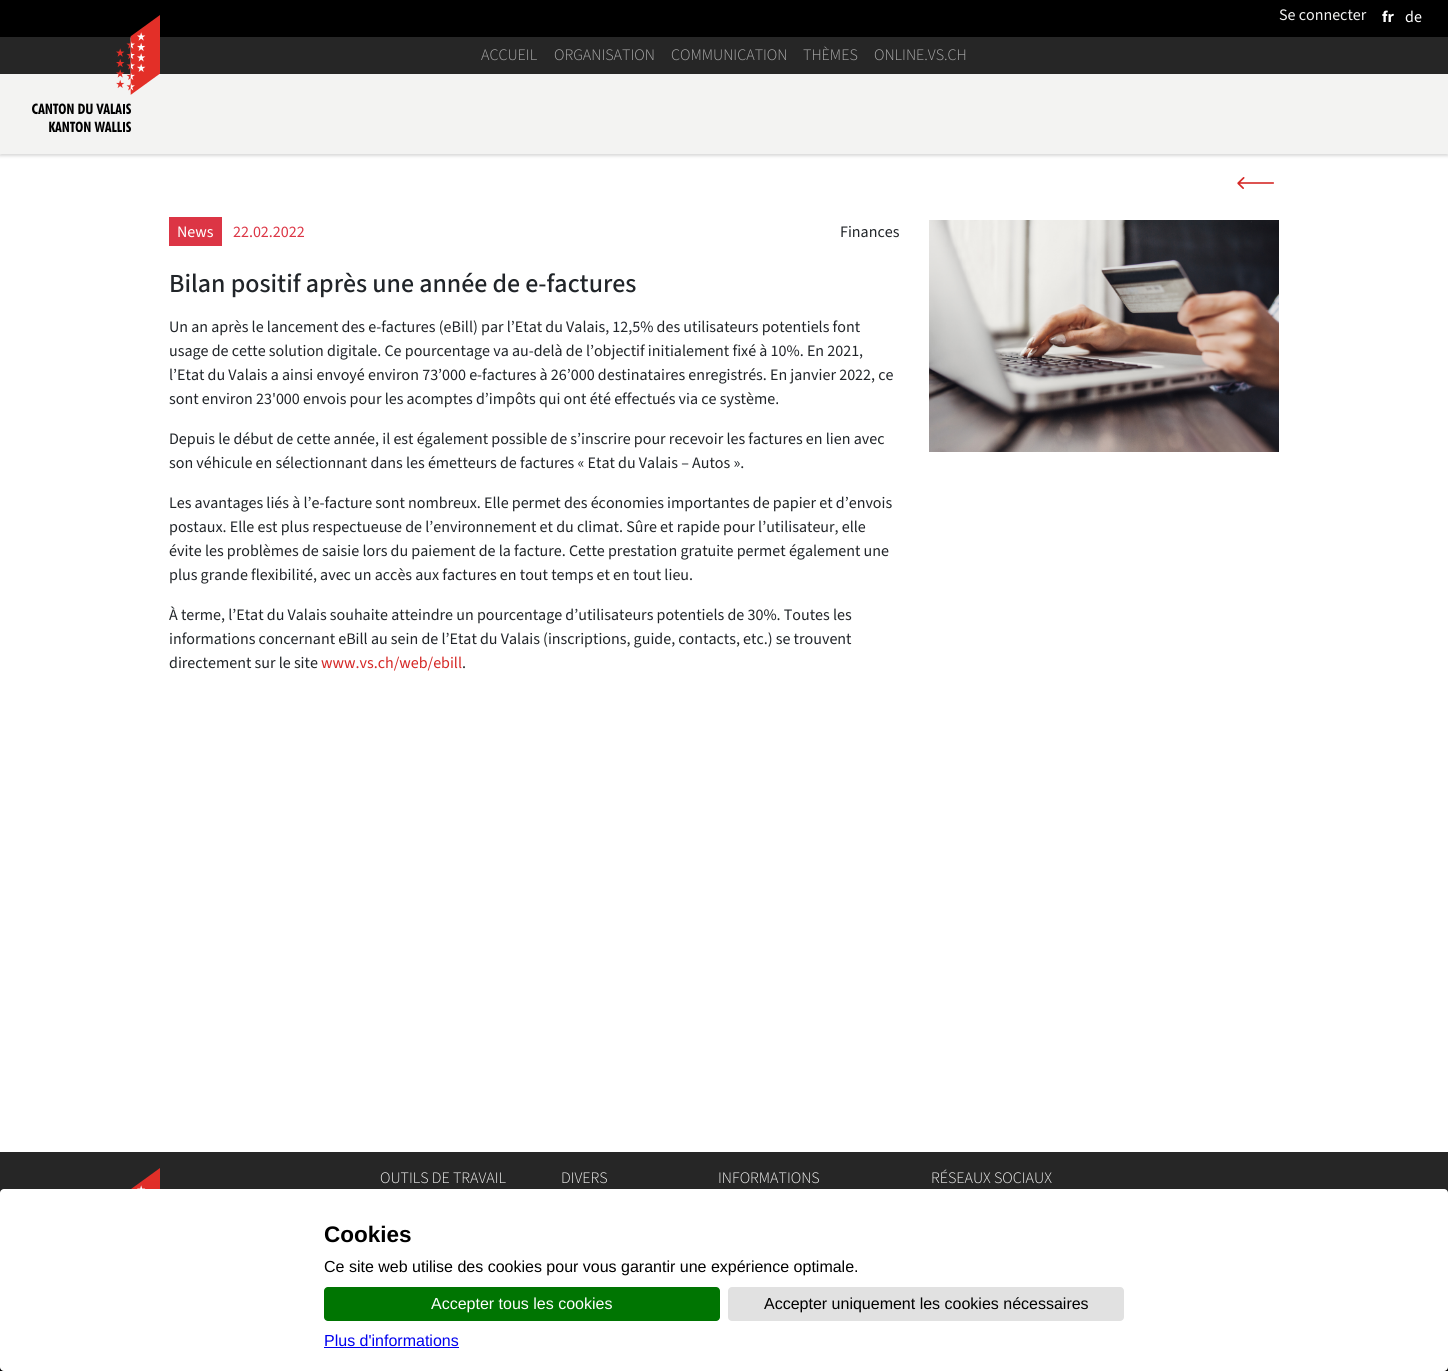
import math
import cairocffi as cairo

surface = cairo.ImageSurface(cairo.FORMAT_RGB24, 1448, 1371)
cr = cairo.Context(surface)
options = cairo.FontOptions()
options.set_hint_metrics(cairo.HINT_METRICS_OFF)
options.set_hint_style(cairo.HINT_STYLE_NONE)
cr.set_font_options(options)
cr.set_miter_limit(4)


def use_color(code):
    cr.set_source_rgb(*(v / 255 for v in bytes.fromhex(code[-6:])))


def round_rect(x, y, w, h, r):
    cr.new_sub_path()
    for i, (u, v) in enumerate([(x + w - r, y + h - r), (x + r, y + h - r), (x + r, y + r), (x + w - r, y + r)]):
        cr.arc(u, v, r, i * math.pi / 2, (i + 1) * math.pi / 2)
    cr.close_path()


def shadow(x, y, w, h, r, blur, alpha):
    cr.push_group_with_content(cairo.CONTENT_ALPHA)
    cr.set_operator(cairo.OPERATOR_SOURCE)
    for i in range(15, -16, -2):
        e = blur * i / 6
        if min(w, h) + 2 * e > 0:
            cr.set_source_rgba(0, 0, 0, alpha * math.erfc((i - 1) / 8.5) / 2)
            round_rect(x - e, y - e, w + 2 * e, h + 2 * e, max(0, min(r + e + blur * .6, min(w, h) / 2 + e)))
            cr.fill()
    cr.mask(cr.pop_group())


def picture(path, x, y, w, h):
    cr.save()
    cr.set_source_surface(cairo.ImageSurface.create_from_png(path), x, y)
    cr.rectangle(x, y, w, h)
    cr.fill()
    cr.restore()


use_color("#ffffff")
cr.paint()
use_color("#000000")
cr.rectangle(0, 0, 1448, 37)
cr.fill()
cr.select_font_face("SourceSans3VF")
cr.set_font_size(16)
use_color("#f3f3f2")
cr.move_to(1279, 20)
cr.show_text("Se connecter")
cr.select_font_face("SourceSans3VF", cairo.FONT_SLANT_NORMAL, cairo.FONT_WEIGHT_BOLD)
use_color("#ffffff")
cr.move_to(1382, 22)
cr.show_text("fr")
cr.select_font_face("SourceSans3VF")
cr.move_to(1405, 22)
cr.show_text("de")
use_color("#262626")
cr.rectangle(0, 37, 1448, 37)
cr.fill()
use_color("#000000")
shadow(0, 76, 1448, 80, 0, 1.5, 0.15)
use_color("#f3f3f2")
cr.rectangle(0, 74, 1448, 80)
cr.fill()
picture("img1.png", 32, 15, 128, 117)
cr.select_font_face("SourceSans3VF Light")
use_color("#aaaaaa")
cr.move_to(481, 60)
cr.show_text("ACCUEIL")
cr.move_to(554, 60)
cr.show_text("ORGANISATION")
cr.move_to(671, 60)
cr.show_text("COMMUNICATION")
cr.move_to(803, 60)
cr.show_text("THÈMES")
cr.move_to(874, 60)
cr.show_text("ONLINE.VS.CH")
picture("img2.png", 1237, 177, 37, 12)
use_color("#dc3545")
cr.rectangle(169, 217, 53, 29)
cr.fill()
cr.select_font_face("SourceSans3VF")
use_color("#ffffff")
cr.move_to(177, 237)
cr.show_text("News")
use_color("#dc3545")
cr.move_to(233, 237)
cr.show_text("22.02.2022")
use_color("#212529")
cr.move_to(840, 237)
cr.show_text("Finances")
cr.select_font_face("SourceSans3VF Medium")
cr.set_font_size(26)
cr.move_to(169, 292)
cr.show_text("Bilan positif après une année de e-factures")
cr.select_font_face("SourceSans3VF")
cr.set_font_size(16)
cr.move_to(169, 332)
cr.show_text("Un an après le lancement des e-factures (eBill) par l’Etat du Valais, 12,5% des utilisateurs potentiels font")
cr.move_to(169, 356)
cr.show_text("usage de cette solution digitale. Ce pourcentage va au-delà de l’objectif initialement fixé à 10%. En 2021,")
cr.move_to(169, 380)
cr.show_text("l’Etat du Valais a ainsi envoyé environ 73’000 e-factures à 26’000 destinataires enregistrés. En janvier 2022, ce")
cr.move_to(169, 404)
cr.show_text("sont environ 23'000 envois pour les acomptes d’impôts qui ont été effectués via ce système.")
cr.move_to(169, 444)
cr.show_text("Depuis le début de cette année, il est également possible de s’inscrire pour recevoir les factures en lien avec")
cr.move_to(169, 468)
cr.show_text("son véhicule en sélectionnant dans les émetteurs de factures « Etat du Valais – Autos ».")
cr.move_to(169, 508)
cr.show_text("Les avantages liés à l’e-facture sont nombreux. Elle permet des économies importantes de papier et d’envois")
cr.move_to(169, 532)
cr.show_text("postaux. Elle est plus respectueuse de l’environnement et du climat. Sûre et rapide pour l’utilisateur, elle")
cr.move_to(169, 556)
cr.show_text("évite les problèmes de saisie lors du paiement de la facture. Cette prestation gratuite permet également une")
cr.move_to(169, 580)
cr.show_text("plus grande flexibilité, avec un accès aux factures en tout temps et en tout lieu.")
cr.move_to(169, 620)
cr.show_text("À terme, l’Etat du Valais souhaite atteindre un pourcentage d’utilisateurs potentiels de 30%. Toutes les")
cr.move_to(169, 644)
cr.show_text("informations concernant eBill au sein de l’Etat du Valais (inscriptions, guide, contacts, etc.) se trouvent")
cr.move_to(169, 668)
cr.show_text("directement sur le site")
use_color("#d52826")
cr.move_to(321, 668)
cr.show_text("www.vs.ch/web/ebill")
use_color("#212529")
cr.move_to(462, 668)
cr.show_text(".")
picture("img3.png", 929, 220, 350, 232)
use_color("#262626")
cr.rectangle(0, 1152, 1448, 41)
cr.fill()
picture("img4.png", 131, 1168, 29, 21)
cr.select_font_face("SourceSans3VF Light")
use_color("#f3f3f2")
cr.move_to(380, 1183)
cr.show_text("OUTILS DE TRAVAIL")
cr.move_to(561, 1183)
cr.show_text("DIVERS")
cr.move_to(718, 1183)
cr.show_text("INFORMATIONS")
cr.move_to(931, 1183)
cr.show_text("RÉSEAUX SOCIAUX")
use_color("#000000")
cr.rectangle(0, 1367, 1448, 4)
cr.fill()
use_color("#000000")
shadow(12, 1226, 1424, 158, 0, 25, 0.25)
use_color("#ffffff")
round_rect(0, 1189, 1448, 182, 4)
cr.fill()
cr.select_font_face("Liberation Sans", cairo.FONT_SLANT_NORMAL, cairo.FONT_WEIGHT_BOLD)
cr.set_font_size(22.5)
use_color("#000000")
cr.move_to(324, 1242)
cr.show_text("Cookies")
cr.select_font_face("Liberation Sans")
cr.set_font_size(16)
cr.move_to(324, 1272)
cr.show_text("Ce site web utilise des cookies pour vous garantir une expérience optimale.")
use_color("#007502")
round_rect(324, 1287, 396, 34, 4)
cr.fill()
use_color("#ffffff")
cr.move_to(431, 1309)
cr.show_text("Accepter tous les cookies")
use_color("#e1e1e1")
round_rect(728, 1287, 396, 34, 4)
cr.fill()
use_color("#000000")
cr.move_to(764, 1309)
cr.show_text("Accepter uniquement les cookies nécessaires")
use_color("#0000ee")
cr.move_to(324, 1346)
cr.show_text("Plus d'informations")
cr.rectangle(324, 1347, 135, 1)
cr.fill()
surface.write_to_png("result.png")
